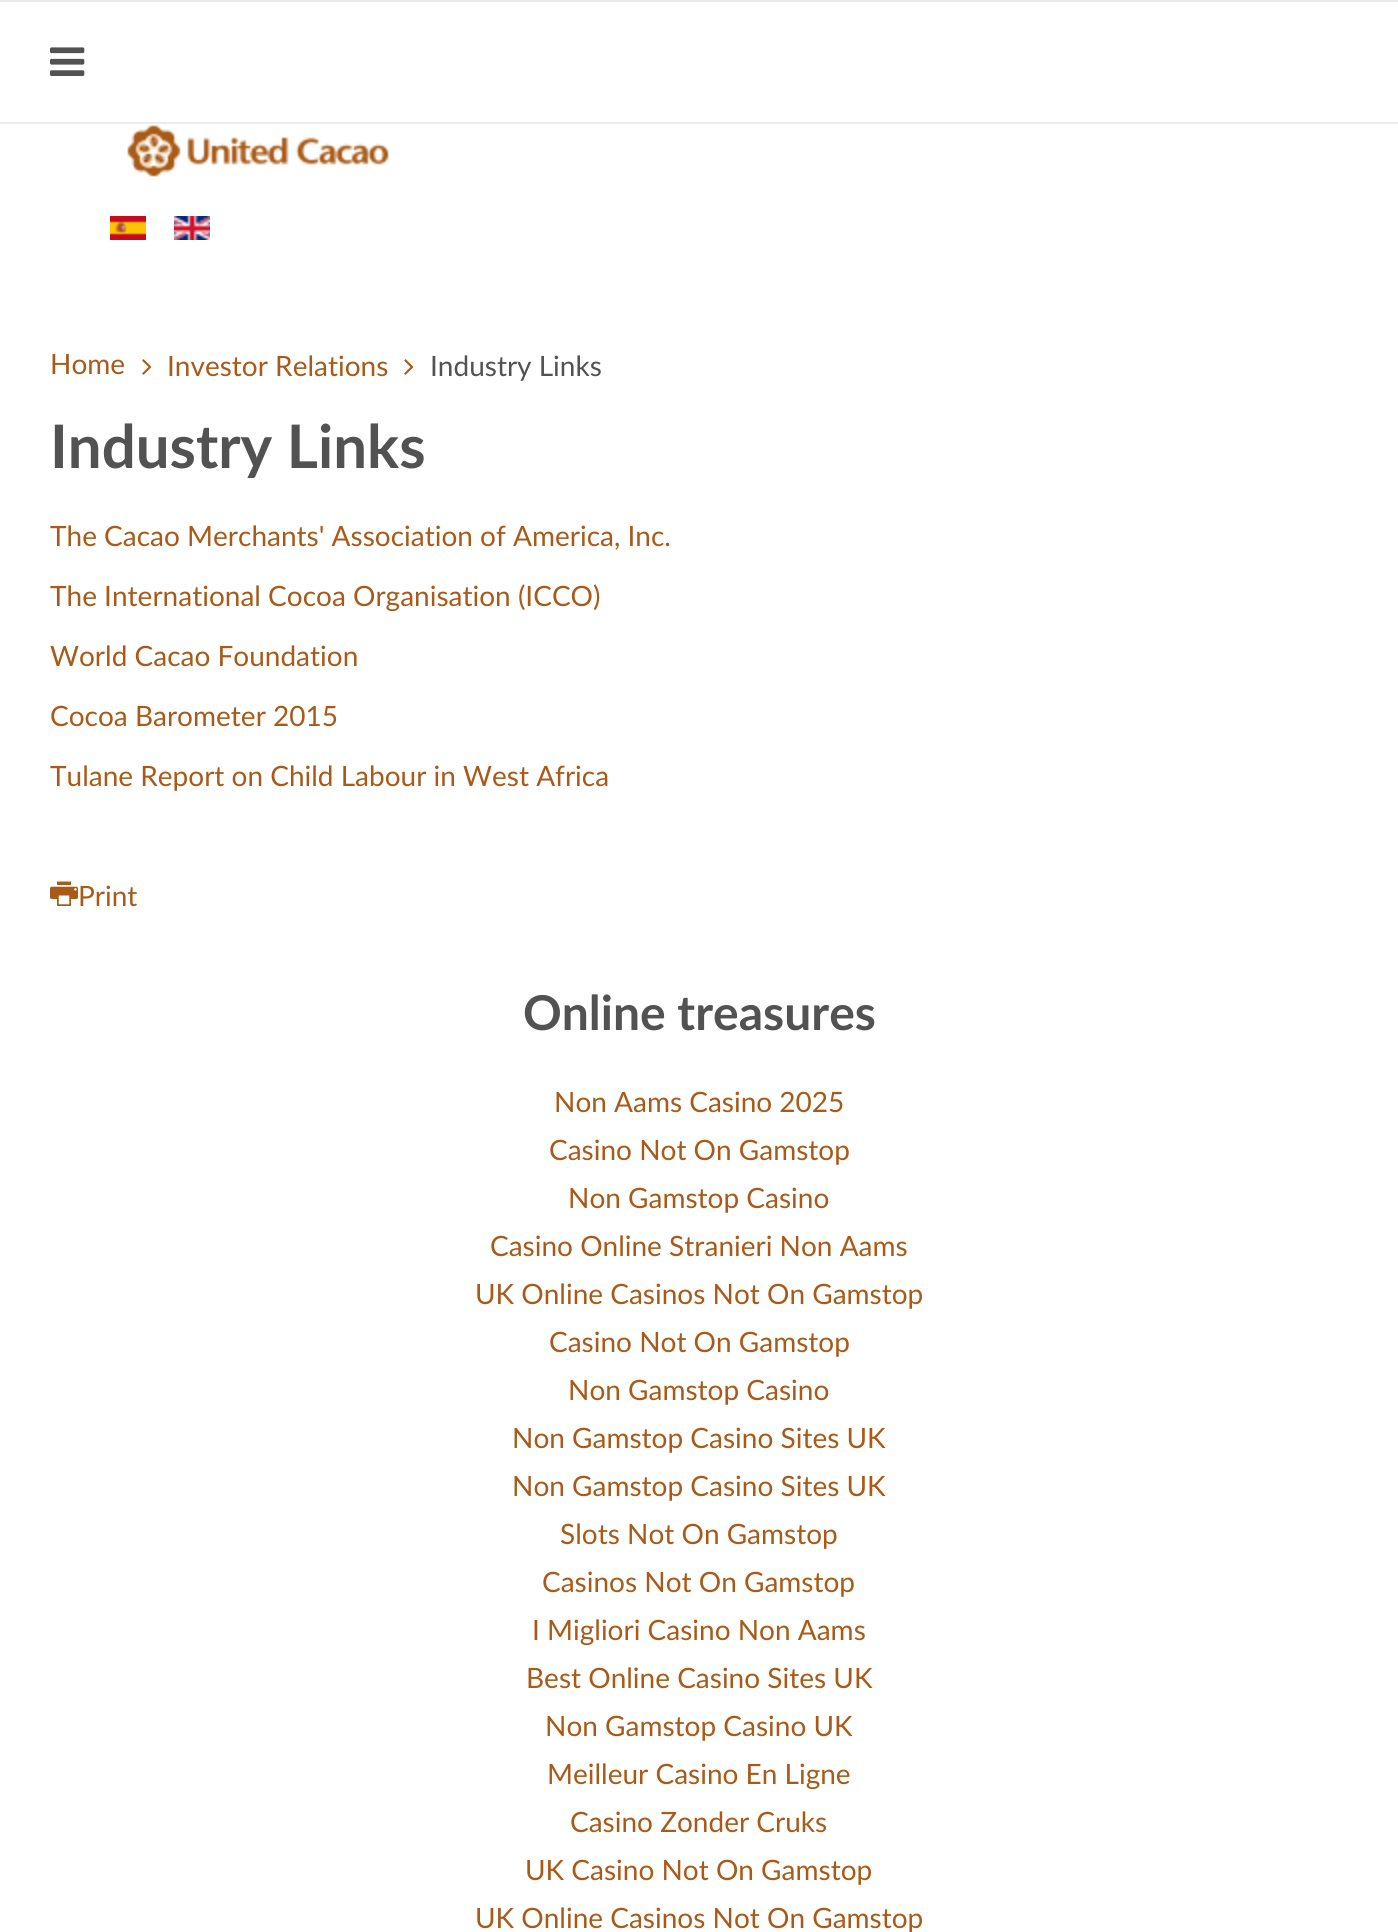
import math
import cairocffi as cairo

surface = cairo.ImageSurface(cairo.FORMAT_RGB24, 1398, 1932)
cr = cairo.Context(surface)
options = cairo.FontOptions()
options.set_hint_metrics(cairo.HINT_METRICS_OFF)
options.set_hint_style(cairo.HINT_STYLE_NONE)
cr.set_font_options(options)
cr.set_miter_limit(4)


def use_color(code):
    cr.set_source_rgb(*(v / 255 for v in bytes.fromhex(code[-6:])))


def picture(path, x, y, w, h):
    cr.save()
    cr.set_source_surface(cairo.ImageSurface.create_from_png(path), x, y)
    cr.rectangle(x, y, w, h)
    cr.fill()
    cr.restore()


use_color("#ffffff")
cr.paint()
use_color("#ebebeb")
cr.rectangle(0, 122, 1398, 2)
cr.fill()
use_color("#eaeaea")
cr.rectangle(0, 0, 1398, 2)
cr.fill()
picture("img1.png", 50, 47, 35, 29)
picture("img2.png", 127, 125, 262, 52)
picture("img3.png", 110, 216, 36, 24)
picture("img4.png", 174, 216, 36, 24)
cr.select_font_face("Lato")
cr.set_font_size(28)
use_color("#a95a18")
cr.move_to(50, 374)
cr.show_text("Home")
picture("img5.png", 142, 359, 10, 16)
cr.move_to(167, 376)
cr.show_text("Investor Relations")
picture("img5.png", 404, 359, 10, 16)
use_color("#525252")
cr.move_to(430, 376)
cr.show_text("Industry Links")
cr.select_font_face("Lato", cairo.FONT_SLANT_NORMAL, cairo.FONT_WEIGHT_BOLD)
cr.set_font_size(60)
cr.move_to(50, 468)
cr.show_text("Industry Links")
cr.select_font_face("Lato")
cr.set_font_size(28)
use_color("#a95a18")
cr.move_to(50, 546)
cr.show_text("The Cacao Merchants' Association of America, Inc.")
cr.move_to(50, 606)
cr.show_text("The International Cocoa Organisation (ICCO)")
cr.move_to(50, 666)
cr.show_text("World Cacao Foundation")
cr.move_to(50, 726)
cr.show_text("Cocoa Barometer 2015")
cr.move_to(50, 786)
cr.show_text("Tulane Report on Child Labour in West Africa")
picture("img6.png", 50, 881, 28, 25)
cr.move_to(78, 906)
cr.show_text("Print")
cr.select_font_face("Lato", cairo.FONT_SLANT_NORMAL, cairo.FONT_WEIGHT_BOLD)
cr.set_font_size(48)
use_color("#525252")
cr.move_to(523, 1030)
cr.show_text("Online treasures")
cr.select_font_face("Lato")
cr.set_font_size(28)
use_color("#a95a18")
cr.move_to(554, 1112)
cr.show_text("Non Aams Casino 2025")
cr.move_to(549, 1160)
cr.show_text("Casino Not On Gamstop")
cr.move_to(568, 1208)
cr.show_text("Non Gamstop Casino")
cr.move_to(490, 1256)
cr.show_text("Casino Online Stranieri Non Aams")
cr.move_to(475, 1304)
cr.show_text("UK Online Casinos Not On Gamstop")
cr.move_to(549, 1352)
cr.show_text("Casino Not On Gamstop")
cr.move_to(568, 1400)
cr.show_text("Non Gamstop Casino")
cr.move_to(512, 1448)
cr.show_text("Non Gamstop Casino Sites UK")
cr.move_to(512, 1496)
cr.show_text("Non Gamstop Casino Sites UK")
cr.move_to(560, 1544)
cr.show_text("Slots Not On Gamstop")
cr.move_to(542, 1592)
cr.show_text("Casinos Not On Gamstop")
cr.move_to(532, 1640)
cr.show_text("I Migliori Casino Non Aams")
cr.move_to(526, 1688)
cr.show_text("Best Online Casino Sites UK")
cr.move_to(545, 1736)
cr.show_text("Non Gamstop Casino UK")
cr.move_to(547, 1784)
cr.show_text("Meilleur Casino En Ligne")
cr.move_to(570, 1832)
cr.show_text("Casino Zonder Cruks")
cr.move_to(525, 1880)
cr.show_text("UK Casino Not On Gamstop")
cr.move_to(475, 1928)
cr.show_text("UK Online Casinos Not On Gamstop")
surface.write_to_png("result.png")
